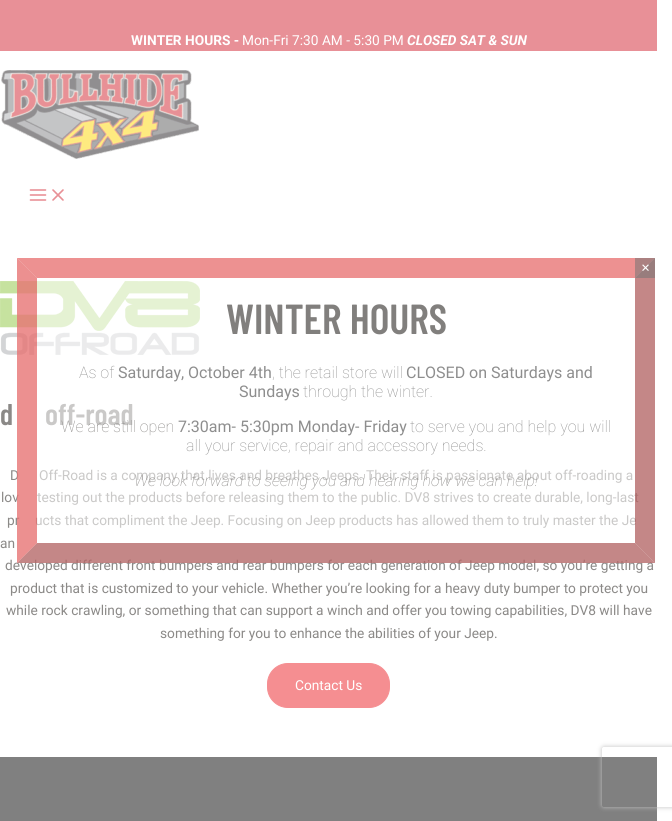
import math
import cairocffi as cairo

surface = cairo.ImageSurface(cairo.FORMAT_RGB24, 672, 821)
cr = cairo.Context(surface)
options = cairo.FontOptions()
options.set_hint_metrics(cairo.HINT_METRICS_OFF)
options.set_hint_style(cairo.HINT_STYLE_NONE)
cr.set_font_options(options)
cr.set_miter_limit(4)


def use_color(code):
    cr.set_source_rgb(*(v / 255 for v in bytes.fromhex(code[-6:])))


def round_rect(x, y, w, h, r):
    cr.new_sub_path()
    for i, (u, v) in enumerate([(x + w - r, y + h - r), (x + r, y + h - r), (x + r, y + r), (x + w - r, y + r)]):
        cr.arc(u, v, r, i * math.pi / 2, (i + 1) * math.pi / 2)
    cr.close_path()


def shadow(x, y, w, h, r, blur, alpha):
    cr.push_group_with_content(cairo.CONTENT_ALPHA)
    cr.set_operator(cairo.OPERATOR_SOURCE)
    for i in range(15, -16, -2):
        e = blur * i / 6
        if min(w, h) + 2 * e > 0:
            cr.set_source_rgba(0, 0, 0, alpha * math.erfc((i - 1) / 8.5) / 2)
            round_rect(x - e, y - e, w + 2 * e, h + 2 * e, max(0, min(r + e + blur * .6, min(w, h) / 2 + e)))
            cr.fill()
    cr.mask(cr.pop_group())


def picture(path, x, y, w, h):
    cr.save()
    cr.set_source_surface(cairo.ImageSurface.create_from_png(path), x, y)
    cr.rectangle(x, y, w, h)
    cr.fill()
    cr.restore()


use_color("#ffffff")
cr.paint()
use_color("#e89097")
cr.rectangle(0, 0, 657, 51)
cr.fill()
cr.select_font_face("Roboto", cairo.FONT_SLANT_NORMAL, cairo.FONT_WEIGHT_BOLD)
cr.set_font_size(13.7)
use_color("#ffffff")
cr.move_to(131, 45)
cr.show_text("WINTER HOURS -")
cr.select_font_face("Roboto")
cr.move_to(242, 45)
cr.show_text("Mon-Fri 7:30 AM - 5:30 PM")
cr.select_font_face("Roboto", cairo.FONT_SLANT_ITALIC, cairo.FONT_WEIGHT_BOLD)
cr.move_to(407, 45)
cr.show_text("CLOSED SAT & SUN")
picture("img1.png", 1, 70, 198, 89)
picture("img2.png", 29, 189, 18, 12)
picture("img3.png", 52, 189, 12, 12)
picture("img4.png", 0, 281, 200, 74)
cr.select_font_face("Barlow Condensed SemiBold")
cr.set_font_size(30)
use_color("#8b8987")
cr.move_to(0, 425)
cr.show_text("d")
cr.move_to(45, 425)
cr.show_text("off-road")
cr.select_font_face("Roboto")
cr.set_font_size(13.7)
cr.move_to(10, 480)
cr.show_text("D")
cr.move_to(39, 480)
cr.show_text("Off-Road is a company that lives and breathes Jeeps. Their staff is passionate about off-roading a")
cr.move_to(1, 502)
cr.show_text("lov")
cr.move_to(37, 502)
cr.show_text("testing out the products before releasing them to the public. DV8 strives to create durable, long-last")
cr.move_to(7, 525)
cr.show_text("pr")
cr.move_to(35, 525)
cr.show_text("ucts that compliment the Jeep. Focusing on Jeep products has allowed them to truly master the Je")
cr.move_to(0, 548)
cr.show_text("an")
cr.move_to(5, 570)
cr.show_text("developed different front bumpers and rear bumpers for each generation of Jeep model, so you’re getting a")
cr.move_to(10, 593)
cr.show_text("product that is customized to your vehicle. Whether you’re looking for a heavy duty bumper to protect you")
cr.move_to(6, 615)
cr.show_text("while rock crawling, or something that can support a winch and offer you towing capabilities, DV8 will have")
cr.move_to(160, 638)
cr.show_text("something for you to enhance the abilities of your Jeep.")
use_color("#f58e91")
round_rect(267.5, 663.5, 122, 44, 20.5)
cr.fill_preserve()
cr.set_line_width(1)
cr.stroke()
use_color("#ffffff")
cr.move_to(295, 690)
cr.show_text("Contact Us")
use_color("#808080")
cr.rectangle(0, 757, 657, 64)
cr.fill()
cr.set_source_rgba(1, 1, 1, 0.54)
cr.rectangle(17, 281, 633, 282)
cr.fill()
use_color("#ed9191")
cr.new_path()
cr.move_to(17, 258)
cr.line_to(655, 258)
cr.line_to(635, 278)
cr.line_to(37, 278)
cr.close_path()
cr.fill()
cr.set_source_rgba(0.576, 0.133, 0.133, 0.54)
cr.new_path()
cr.move_to(655, 258)
cr.line_to(655, 563)
cr.line_to(635, 543)
cr.line_to(635, 278)
cr.close_path()
cr.fill()
cr.new_path()
cr.move_to(655, 563)
cr.line_to(17, 563)
cr.line_to(37, 543)
cr.line_to(635, 543)
cr.close_path()
cr.fill()
cr.set_source_rgba(0.867, 0.2, 0.2, 0.54)
cr.new_path()
cr.move_to(17, 563)
cr.line_to(17, 258)
cr.line_to(37, 278)
cr.line_to(37, 543)
cr.close_path()
cr.fill()
cr.set_source_rgba(0.459, 0.459, 0.459, 0.55)
cr.rectangle(635, 258, 20, 20)
cr.fill()
cr.select_font_face("Liberation Serif", cairo.FONT_SLANT_NORMAL, cairo.FONT_WEIGHT_BOLD)
cr.set_font_size(16)
use_color("#ffffff")
cr.move_to(641, 273)
cr.show_text("×")
cr.select_font_face("Barlow Condensed SemiBold")
cr.set_font_size(42)
use_color("#817f7d")
cr.move_to(226, 334)
cr.show_text("WINTER HOURS")
cr.select_font_face("Roboto Thin")
cr.set_font_size(16)
use_color("#8e8e8e")
cr.move_to(79, 378)
cr.show_text("As of")
cr.select_font_face("Roboto")
cr.move_to(118, 378)
cr.show_text("Saturday, October 4th")
cr.select_font_face("Roboto Thin")
cr.move_to(272, 378)
cr.show_text(", the retail store will")
cr.select_font_face("Roboto")
cr.move_to(406, 378)
cr.show_text("CLOSED on Saturdays and")
cr.move_to(239, 397)
cr.show_text("Sundays")
cr.select_font_face("Roboto Thin")
cr.move_to(303, 397)
cr.show_text("through the winter.")
use_color("#8b8987")
cr.move_to(61, 432)
cr.show_text("We are still open")
cr.select_font_face("Roboto")
use_color("#8e8e8e")
cr.move_to(178, 432)
cr.show_text("7:30am- 5:30pm Monday- Friday")
cr.select_font_face("Roboto Thin")
cr.move_to(410, 432)
cr.show_text("to serve you and help you will")
cr.move_to(186, 451)
cr.show_text("all your service, repair and accessory needs.")
cr.select_font_face("Roboto Thin", cairo.FONT_SLANT_ITALIC)
use_color("#8b8987")
cr.move_to(134, 486)
cr.show_text("We look forward to seeing you and hearing how we can help!")
cr.save()
cr.set_fill_rule(cairo.FILL_RULE_EVEN_ODD)
cr.new_path()
cr.move_to(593, 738)
cr.line_to(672, 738)
cr.line_to(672, 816)
cr.line_to(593, 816)
cr.close_path()
cr.move_to(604, 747)
cr.line_to(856, 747)
cr.curve_to(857, 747, 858, 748, 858, 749)
cr.line_to(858, 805)
cr.curve_to(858, 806, 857, 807, 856, 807)
cr.line_to(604, 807)
cr.curve_to(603, 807, 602, 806, 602, 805)
cr.line_to(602, 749)
cr.curve_to(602, 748, 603, 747, 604, 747)
cr.close_path()
cr.clip()
use_color("#c0c0c0")
shadow(602, 747, 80, 60, 2, 2.5, 1)
cr.restore()
surface.write_to_png("result.png")
